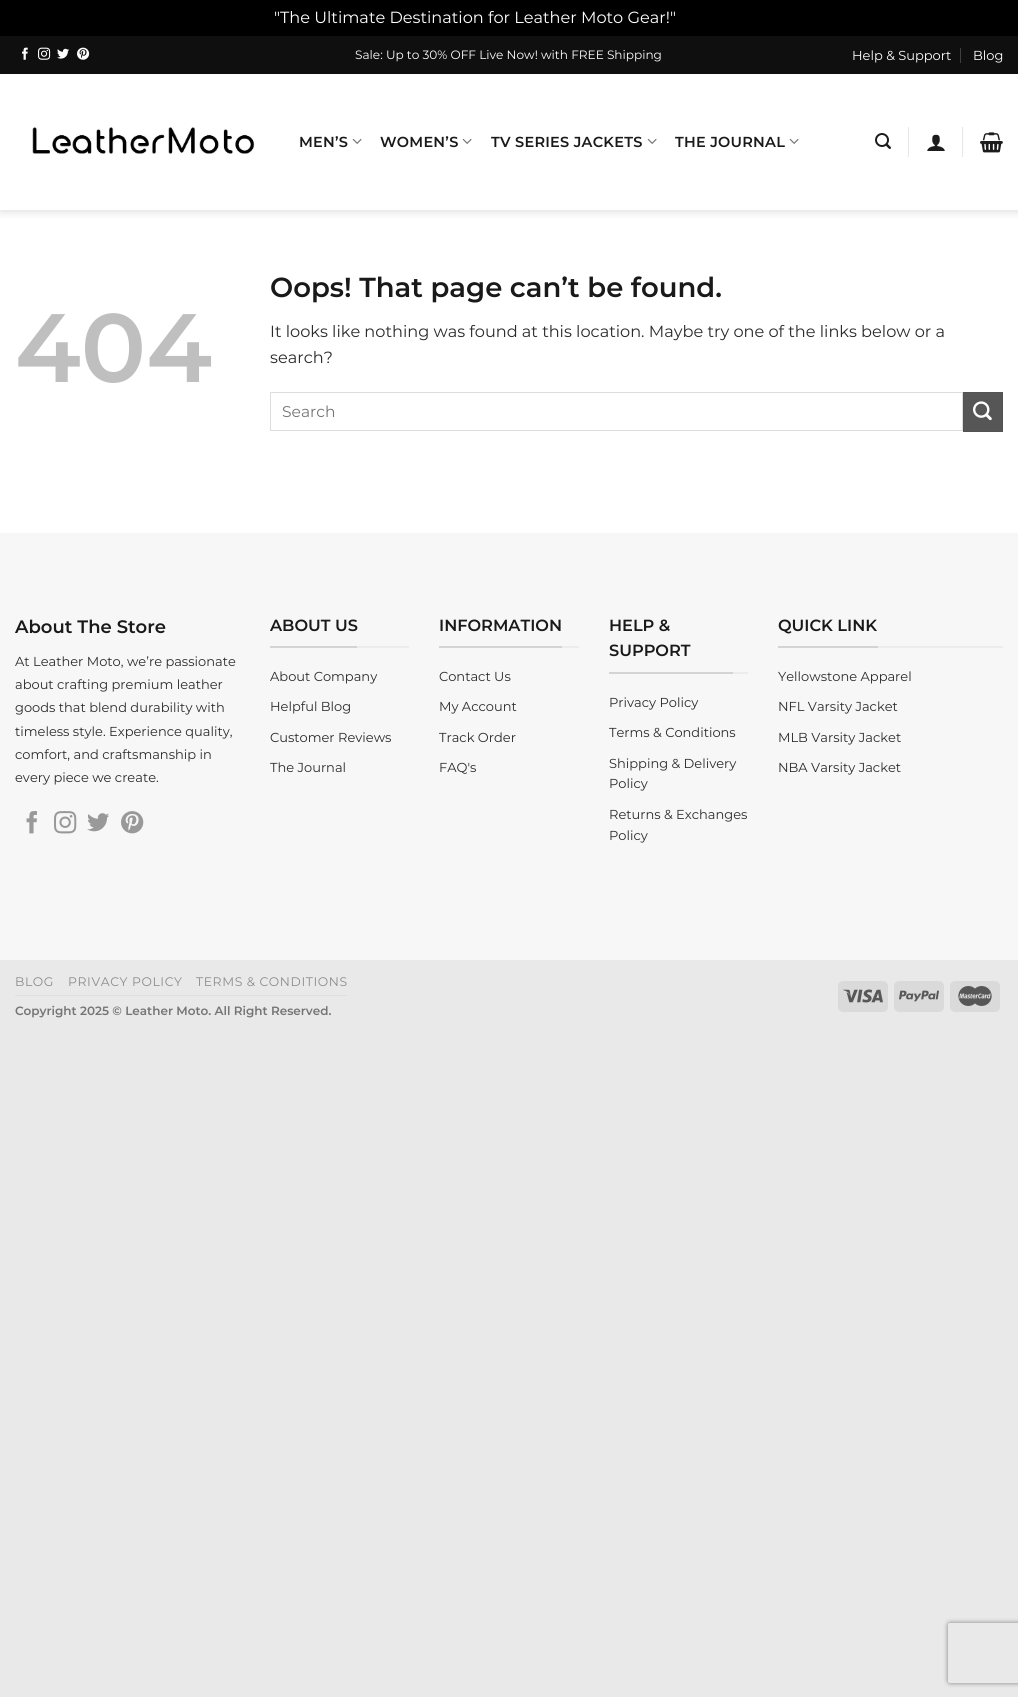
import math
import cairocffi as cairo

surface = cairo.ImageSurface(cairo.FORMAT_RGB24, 1018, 1697)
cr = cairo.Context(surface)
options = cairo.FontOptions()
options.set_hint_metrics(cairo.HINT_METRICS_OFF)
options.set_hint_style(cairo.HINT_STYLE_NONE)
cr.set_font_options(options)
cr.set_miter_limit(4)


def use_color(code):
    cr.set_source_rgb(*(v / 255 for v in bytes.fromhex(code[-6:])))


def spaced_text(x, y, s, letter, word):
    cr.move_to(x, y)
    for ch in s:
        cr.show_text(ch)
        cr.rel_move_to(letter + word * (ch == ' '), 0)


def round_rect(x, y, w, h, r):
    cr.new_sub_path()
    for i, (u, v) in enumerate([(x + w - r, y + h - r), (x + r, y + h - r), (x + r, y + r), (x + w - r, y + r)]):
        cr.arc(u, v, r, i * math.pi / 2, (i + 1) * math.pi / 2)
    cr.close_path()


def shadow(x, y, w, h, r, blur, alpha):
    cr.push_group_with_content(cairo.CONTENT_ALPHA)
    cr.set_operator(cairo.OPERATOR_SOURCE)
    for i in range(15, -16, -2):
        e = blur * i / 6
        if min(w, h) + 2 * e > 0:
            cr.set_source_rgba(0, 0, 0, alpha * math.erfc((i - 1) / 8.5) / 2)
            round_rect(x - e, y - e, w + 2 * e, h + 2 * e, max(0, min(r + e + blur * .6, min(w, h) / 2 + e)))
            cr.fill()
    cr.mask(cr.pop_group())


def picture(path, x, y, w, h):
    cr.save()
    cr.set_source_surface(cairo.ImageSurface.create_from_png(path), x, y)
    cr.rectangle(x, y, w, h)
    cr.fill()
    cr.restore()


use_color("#e9e9e9")
cr.paint()
use_color("#000000")
cr.rectangle(0, 0, 1018, 36)
cr.fill()
cr.select_font_face("Montserrat")
cr.set_font_size(16.15)
use_color("#ffffff")
cr.move_to(274, 23)
cr.show_text("\"The Ultimate Destination for Leather Moto Gear!\"")
cr.rectangle(0, 74, 1018, 459)
cr.fill()
cr.save()
cr.set_fill_rule(cairo.FILL_RULE_EVEN_ODD)
cr.new_path()
cr.move_to(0, 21)
cr.line_to(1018, 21)
cr.line_to(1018, 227)
cr.line_to(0, 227)
cr.close_path()
cr.move_to(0, 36)
cr.line_to(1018, 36)
cr.line_to(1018, 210)
cr.line_to(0, 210)
cr.close_path()
cr.clip()
use_color("#000000")
shadow(1, 37, 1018, 174, 0, 5, 0.15)
cr.restore()
use_color("#0f0f0f")
cr.rectangle(0, 36, 1018, 38)
cr.fill()
picture("img1.png", 22, 47, 6, 13)
picture("img2.png", 38, 47, 13, 13)
picture("img3.png", 57, 48, 12, 11)
picture("img4.png", 77, 47, 13, 13)
cr.set_font_size(12.1)
use_color("#ffffff")
cr.move_to(355, 59)
cr.show_text("Sale: Up to 30% OFF Live Now! with FREE Shipping")
cr.set_font_size(13)
cr.move_to(852, 60)
cr.show_text("Help & Support")
use_color("#3f3f3f")
cr.rectangle(960, 48, 1, 15)
cr.fill()
use_color("#ffffff")
cr.move_to(973, 60)
cr.show_text("Blog")
picture("img5.png", 32, 127, 223, 27)
cr.select_font_face("Montserrat SemiBold")
cr.set_font_size(14.5)
use_color("#191919")
spaced_text(299, 147, "MEN’S", 0.25, 0)
picture("img6.png", 352, 138, 10, 6)
spaced_text(380, 147, "WOMEN’S", 0.25, 0)
picture("img6.png", 462, 138, 10, 6)
spaced_text(491, 147, "TV SERIES JACKETS", 0.25, 0)
picture("img6.png", 647, 138, 10, 6)
spaced_text(675, 147, "THE JOURNAL", 0.25, 0)
picture("img6.png", 789, 138, 10, 6)
picture("img7.png", 875, 133, 16, 16)
use_color("#e6e6e6")
cr.rectangle(908, 127, 1, 30)
cr.fill()
picture("img8.png", 927, 134, 18, 17)
cr.rectangle(962, 127, 1, 30)
cr.fill()
picture("img9.png", 980, 132, 23, 21)
cr.set_font_size(97)
use_color("#bfbfbf")
cr.move_to(15, 382)
cr.show_text("404")
cr.set_font_size(27.5)
use_color("#191919")
cr.move_to(270, 297)
cr.show_text("Oops! That page can’t be found.")
cr.select_font_face("Montserrat")
cr.set_font_size(16.15)
use_color("#2b2b2b")
cr.move_to(270, 337)
cr.show_text("It looks like nothing was found at this location. Maybe try one of the links below or a")
cr.move_to(270, 363)
cr.show_text("search?")
cr.rectangle(270.5, 392.5, 692, 38)
use_color("#dddddd")
cr.set_line_width(1)
cr.stroke()
cr.set_font_size(15.5)
use_color("#757575")
cr.move_to(282, 417)
cr.show_text("Search")
use_color("#565656")
cr.rectangle(963.5, 392.5, 39, 39)
cr.fill_preserve()
use_color("#525252")
cr.stroke()
picture("img10.png", 973, 401, 19, 20)
use_color("#f7f7f7")
cr.rectangle(0, 533, 1018, 427)
cr.fill()
cr.select_font_face("Montserrat SemiBold")
cr.set_font_size(18)
use_color("#191919")
cr.move_to(15, 633)
cr.show_text("About The Store")
cr.select_font_face("Montserrat")
cr.set_font_size(13)
use_color("#2b2b2b")
cr.move_to(15, 666)
cr.show_text("At Leather Moto, we’re passionate")
cr.move_to(15, 689)
cr.show_text("about crafting premium leather")
cr.move_to(15, 712)
cr.show_text("goods that blend durability with")
cr.move_to(15, 736)
cr.show_text("timeless style. Experience quality,")
cr.move_to(15, 759)
cr.show_text("comfort, and craftsmanship in")
cr.move_to(15, 782)
cr.show_text("every piece we create.")
picture("img11.png", 26, 811, 11, 23)
picture("img12.png", 54, 811, 23, 23)
picture("img13.png", 87, 813, 22, 19)
picture("img14.png", 121, 811, 23, 23)
use_color("#ececec")
cr.rectangle(357, 646, 52, 2)
cr.fill()
use_color("#d4d4d4")
cr.rectangle(270, 646, 87, 2)
cr.fill()
cr.select_font_face("Montserrat SemiBold")
cr.set_font_size(16.15)
use_color("#191919")
cr.move_to(270, 631)
cr.show_text("ABOUT US")
cr.select_font_face("Montserrat")
cr.set_font_size(13)
use_color("#2b2b2b")
cr.move_to(270, 681)
cr.show_text("About Company")
cr.move_to(270, 711)
cr.show_text("Helpful Blog")
cr.move_to(270, 742)
cr.show_text("Customer Reviews")
cr.move_to(270, 772)
cr.show_text("The Journal")
use_color("#ececec")
cr.rectangle(562, 646, 17, 2)
cr.fill()
use_color("#d4d4d4")
cr.rectangle(439, 646, 123, 2)
cr.fill()
cr.select_font_face("Montserrat SemiBold")
cr.set_font_size(16.15)
use_color("#191919")
cr.move_to(439, 631)
cr.show_text("INFORMATION")
cr.select_font_face("Montserrat")
cr.set_font_size(13)
use_color("#2b2b2b")
cr.move_to(439, 681)
cr.show_text("Contact Us")
cr.move_to(439, 711)
cr.show_text("My Account")
cr.move_to(439, 742)
cr.show_text("Track Order")
cr.move_to(439, 772)
cr.show_text("FAQ's")
use_color("#ececec")
cr.rectangle(733, 672, 15, 2)
cr.fill()
use_color("#d4d4d4")
cr.rectangle(609, 672, 124, 2)
cr.fill()
cr.select_font_face("Montserrat SemiBold")
cr.set_font_size(16.15)
use_color("#191919")
cr.move_to(609, 631)
cr.show_text("HELP &")
cr.move_to(609, 656)
cr.show_text("SUPPORT")
cr.select_font_face("Montserrat")
cr.set_font_size(13)
use_color("#2b2b2b")
cr.move_to(609, 707)
cr.show_text("Privacy Policy")
cr.move_to(609, 737)
cr.show_text("Terms & Conditions")
cr.move_to(609, 768)
cr.show_text("Shipping & Delivery")
cr.move_to(609, 788)
cr.show_text("Policy")
cr.move_to(609, 819)
cr.show_text("Returns & Exchanges")
cr.move_to(609, 840)
cr.show_text("Policy")
use_color("#ececec")
cr.rectangle(878, 646, 125, 2)
cr.fill()
use_color("#d4d4d4")
cr.rectangle(778, 646, 100, 2)
cr.fill()
cr.select_font_face("Montserrat SemiBold")
cr.set_font_size(16.15)
use_color("#191919")
cr.move_to(778, 631)
cr.show_text("QUICK LINK")
cr.select_font_face("Montserrat")
cr.set_font_size(13)
use_color("#2b2b2b")
cr.move_to(778, 681)
cr.show_text("Yellowstone Apparel")
cr.move_to(778, 711)
cr.show_text("NFL Varsity Jacket")
cr.move_to(778, 742)
cr.show_text("MLB Varsity Jacket")
cr.move_to(778, 772)
cr.show_text("NBA Varsity Jacket")
use_color("#dfdfdf")
cr.rectangle(15, 995, 332, 1)
cr.fill()
cr.set_font_size(12.4)
use_color("#8b8b8b")
spaced_text(15, 986, "BLOG", 0.6, 0)
spaced_text(68, 986, "PRIVACY POLICY", 0.6, 0)
spaced_text(196, 986, "TERMS & CONDITIONS", 0.6, 0)
cr.select_font_face("Montserrat SemiBold")
cr.set_font_size(12)
use_color("#757575")
cr.move_to(15, 1015)
cr.show_text("Copyright 2025 © Leather Moto. All Right Reserved.")
use_color("#dadada")
round_rect(838, 981, 50, 31, 5)
cr.fill()
picture("img15.png", 843, 989, 40, 14)
round_rect(894, 981, 50, 31, 5)
cr.fill()
picture("img16.png", 899, 990, 40, 12)
round_rect(950, 981, 50, 31, 5)
cr.fill()
picture("img17.png", 958, 986, 34, 20)
cr.save()
cr.set_fill_rule(cairo.FILL_RULE_EVEN_ODD)
cr.new_path()
cr.move_to(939, 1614)
cr.line_to(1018, 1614)
cr.line_to(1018, 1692)
cr.line_to(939, 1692)
cr.close_path()
cr.move_to(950, 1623)
cr.line_to(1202, 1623)
cr.curve_to(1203, 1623, 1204, 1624, 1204, 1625)
cr.line_to(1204, 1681)
cr.curve_to(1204, 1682, 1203, 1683, 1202, 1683)
cr.line_to(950, 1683)
cr.curve_to(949, 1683, 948, 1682, 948, 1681)
cr.line_to(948, 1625)
cr.curve_to(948, 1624, 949, 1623, 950, 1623)
cr.close_path()
cr.clip()
use_color("#808080")
shadow(948, 1623, 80, 60, 2, 2.5, 1)
cr.restore()
surface.write_to_png("result.png")
